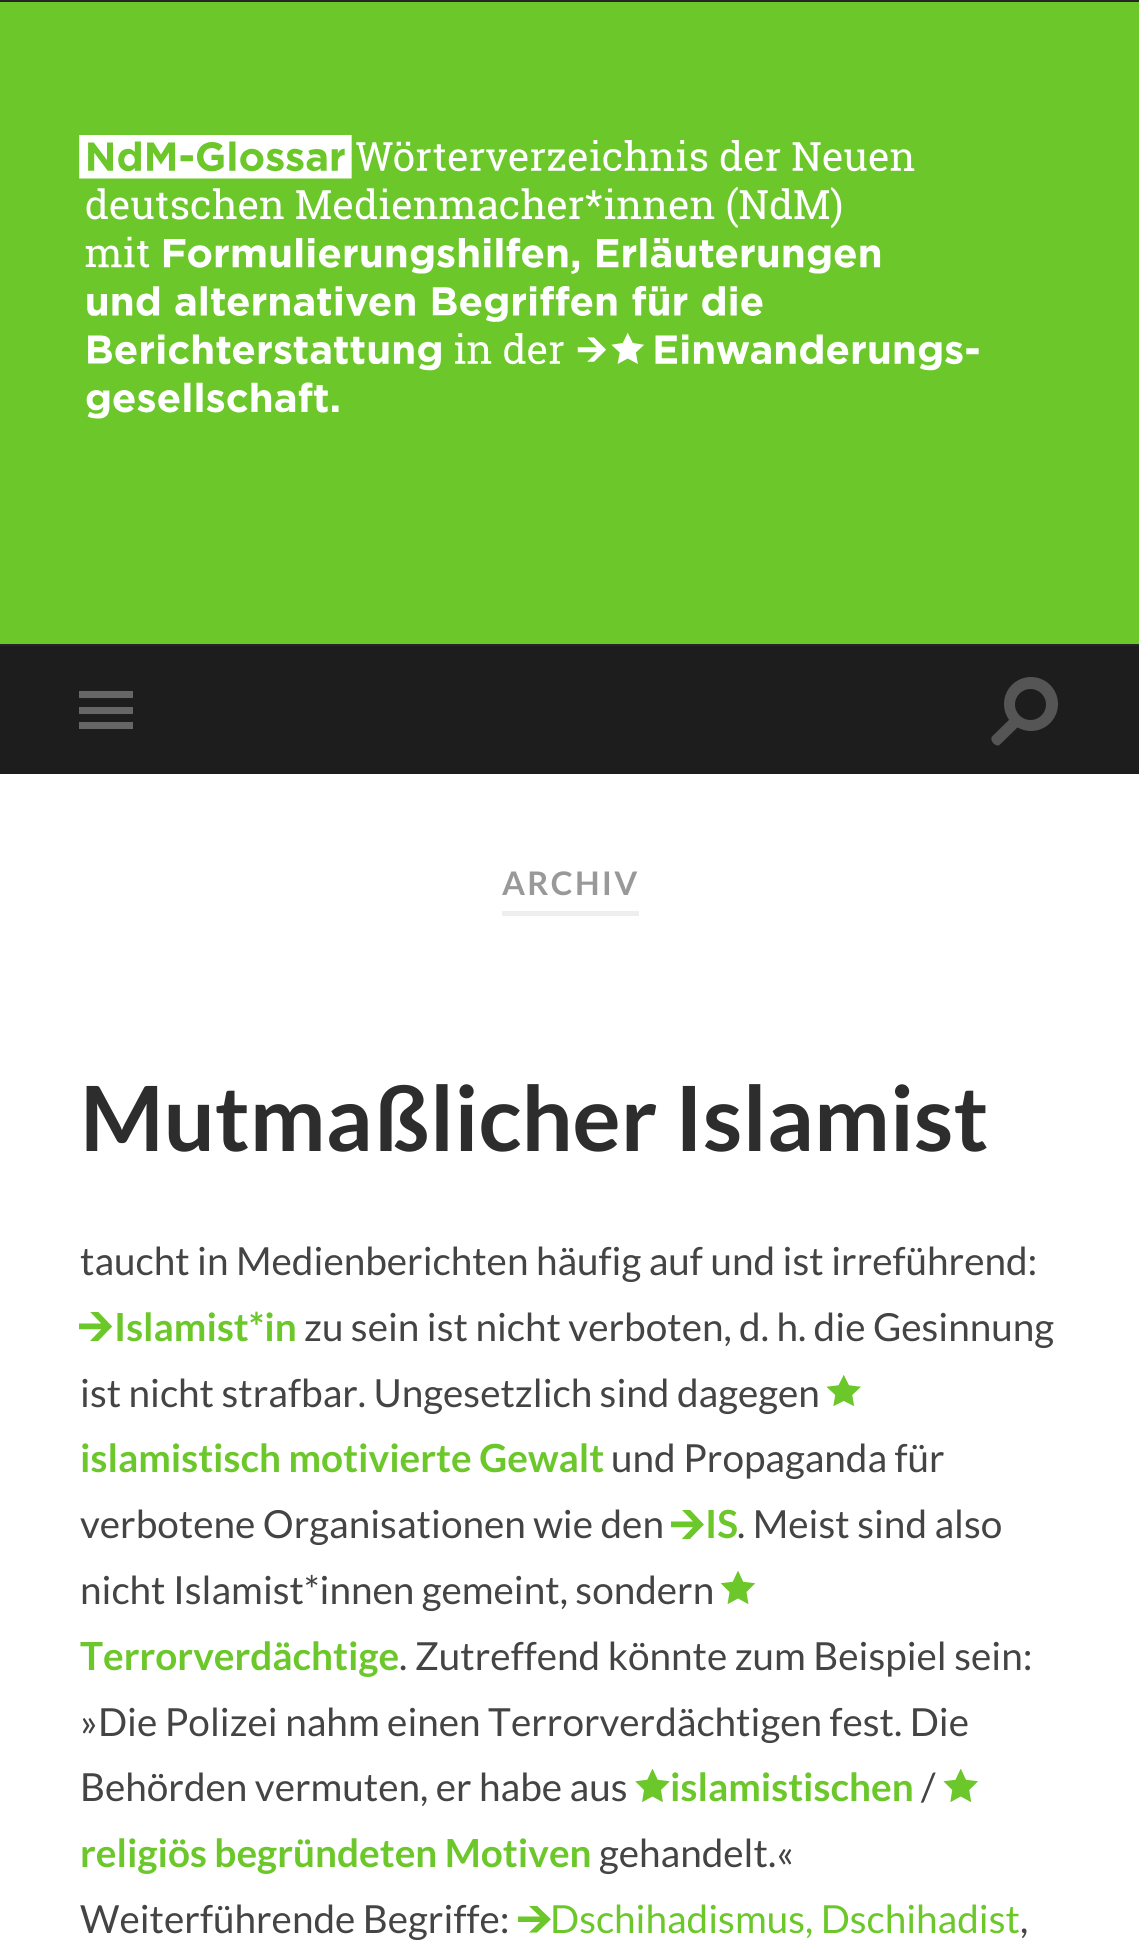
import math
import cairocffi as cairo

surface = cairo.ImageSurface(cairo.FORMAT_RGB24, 1139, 1948)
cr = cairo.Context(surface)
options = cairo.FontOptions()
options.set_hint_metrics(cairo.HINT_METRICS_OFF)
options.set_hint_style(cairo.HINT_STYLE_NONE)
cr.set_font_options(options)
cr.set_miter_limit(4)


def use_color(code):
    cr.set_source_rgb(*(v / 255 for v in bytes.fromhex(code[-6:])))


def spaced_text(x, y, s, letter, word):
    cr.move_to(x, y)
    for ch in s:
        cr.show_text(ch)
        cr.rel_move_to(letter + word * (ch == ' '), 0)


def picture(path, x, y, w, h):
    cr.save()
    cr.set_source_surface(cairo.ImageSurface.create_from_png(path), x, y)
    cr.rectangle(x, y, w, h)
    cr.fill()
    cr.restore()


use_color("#ffffff")
cr.paint()
use_color("#262626")
cr.rectangle(0, 0, 1139, 646)
cr.fill()
use_color("#6cc72b")
cr.rectangle(0, 2, 1139, 642)
cr.fill()
picture("img1.png", 79, 135, 900, 284)
use_color("#1d1d1d")
cr.rectangle(0, 646, 1139, 128)
cr.fill()
use_color("#666666")
cr.rectangle(79, 691, 54, 7)
cr.fill()
cr.rectangle(79, 707, 54, 7)
cr.fill()
cr.rectangle(79, 722, 54, 7)
cr.fill()
use_color("#555555")
cr.arc(1031, 704, 27, 0, 2 * math.pi)
cr.fill()
use_color("#1d1d1d")
cr.arc(1030.5, 704.5, 15.5, 0, 2 * math.pi)
cr.fill()
use_color("#555555")
cr.new_path()
cr.move_to(992.5, 736)
cr.line_to(1012, 717)
cr.line_to(1020, 725)
cr.line_to(1000, 744.5)
cr.line_to(998.5, 745.5)
cr.curve_to(994, 746, 989, 739.5, 992.5, 736)
cr.close_path()
cr.fill()
use_color("#eeeeee")
cr.rectangle(502, 911, 137, 5)
cr.fill()
cr.select_font_face("Lato", cairo.FONT_SLANT_NORMAL, cairo.FONT_WEIGHT_BOLD)
cr.set_font_size(32.5)
use_color("#999999")
spaced_text(502, 895, "ARCHIV", 2.25, 0)
cr.set_font_size(90)
use_color("#2d2d2d")
cr.move_to(80, 1151)
cr.show_text("Mutmaßlicher Islamist")
cr.select_font_face("Lato")
cr.set_font_size(38.7)
use_color("#444444")
cr.move_to(80, 1275)
cr.show_text("taucht in Medienberichten häufig auf und ist irreführend:")
picture("img2.png", 79, 1312, 33, 29)
cr.select_font_face("Lato", cairo.FONT_SLANT_NORMAL, cairo.FONT_WEIGHT_BOLD)
use_color("#6cc72b")
cr.move_to(114, 1341)
cr.show_text("Islamist*in")
cr.select_font_face("Lato")
use_color("#444444")
cr.move_to(304, 1341)
cr.show_text("zu sein ist nicht verboten, d. h. die Gesinnung")
cr.move_to(80, 1407)
cr.show_text("ist nicht strafbar. Ungesetzlich sind dagegen")
picture("img3.png", 826, 1375, 35, 31)
cr.select_font_face("Lato", cairo.FONT_SLANT_NORMAL, cairo.FONT_WEIGHT_BOLD)
use_color("#6cc72b")
cr.move_to(80, 1472)
cr.show_text("islamistisch motivierte Gewalt")
cr.select_font_face("Lato")
use_color("#444444")
cr.move_to(611, 1472)
cr.show_text("und Propaganda für")
cr.move_to(80, 1538)
cr.show_text("verbotene Organisationen wie den")
picture("img4.png", 671, 1510, 33, 29)
cr.select_font_face("Lato", cairo.FONT_SLANT_NORMAL, cairo.FONT_WEIGHT_BOLD)
use_color("#6cc72b")
cr.move_to(705, 1538)
cr.show_text("IS")
cr.select_font_face("Lato")
use_color("#444444")
cr.move_to(737, 1538)
cr.show_text(". Meist sind also")
cr.move_to(80, 1604)
cr.show_text("nicht Islamist*innen gemeint, sondern")
picture("img5.png", 720, 1571, 36, 33)
cr.select_font_face("Lato", cairo.FONT_SLANT_NORMAL, cairo.FONT_WEIGHT_BOLD)
use_color("#6cc72b")
cr.move_to(80, 1670)
cr.show_text("Terrorverdächtige")
cr.select_font_face("Lato")
use_color("#444444")
cr.move_to(399, 1670)
cr.show_text(". Zutreffend könnte zum Beispiel sein:")
cr.move_to(80, 1736)
cr.show_text("»Die Polizei nahm einen Terrorverdächtigen fest. Die")
cr.move_to(80, 1801)
cr.show_text("Behörden vermuten, er habe aus")
picture("img6.png", 635, 1769, 35, 33)
cr.select_font_face("Lato", cairo.FONT_SLANT_NORMAL, cairo.FONT_WEIGHT_BOLD)
use_color("#6cc72b")
cr.move_to(670, 1801)
cr.show_text("islamistischen")
cr.select_font_face("Lato")
use_color("#444444")
cr.move_to(921, 1801)
cr.show_text("/")
picture("img7.png", 943, 1769, 35, 33)
cr.select_font_face("Lato", cairo.FONT_SLANT_NORMAL, cairo.FONT_WEIGHT_BOLD)
use_color("#6cc72b")
cr.move_to(80, 1867)
cr.show_text("religiös begründeten Motiven")
cr.select_font_face("Lato")
use_color("#444444")
cr.move_to(599, 1867)
cr.show_text("gehandelt.«")
cr.move_to(80, 1933)
cr.show_text("Weiterführende Begriffe:")
picture("img8.png", 518, 1906, 33, 27)
use_color("#6cc72b")
cr.move_to(550, 1933)
cr.show_text("Dschihadismus, Dschihadist")
use_color("#444444")
cr.move_to(1020, 1933)
cr.show_text(",")
surface.write_to_png("result.png")
